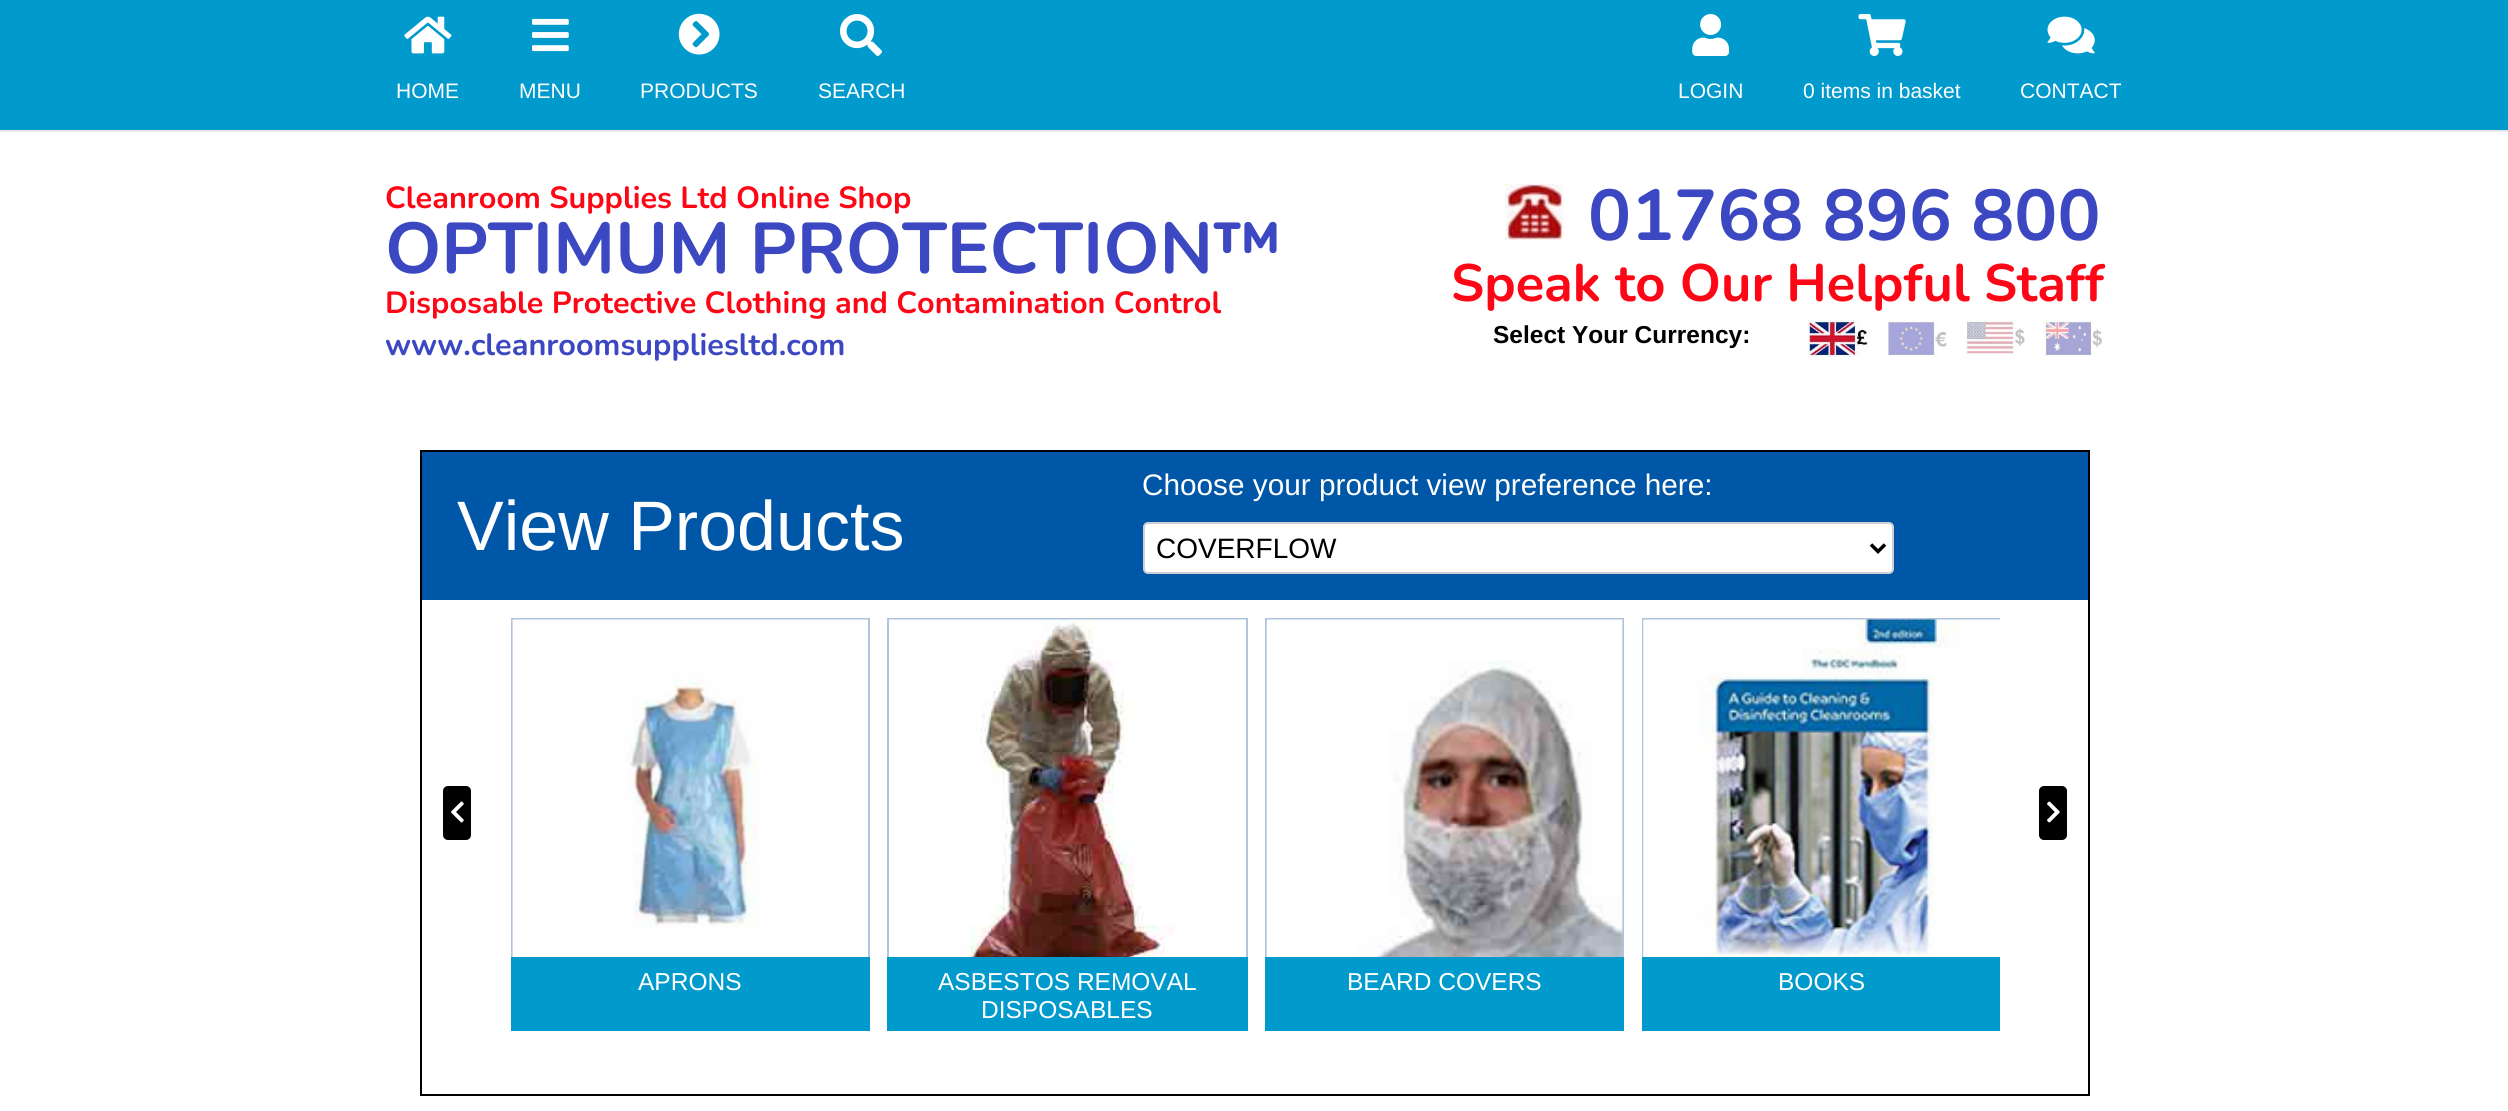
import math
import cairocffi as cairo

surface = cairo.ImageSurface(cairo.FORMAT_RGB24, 2508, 1111)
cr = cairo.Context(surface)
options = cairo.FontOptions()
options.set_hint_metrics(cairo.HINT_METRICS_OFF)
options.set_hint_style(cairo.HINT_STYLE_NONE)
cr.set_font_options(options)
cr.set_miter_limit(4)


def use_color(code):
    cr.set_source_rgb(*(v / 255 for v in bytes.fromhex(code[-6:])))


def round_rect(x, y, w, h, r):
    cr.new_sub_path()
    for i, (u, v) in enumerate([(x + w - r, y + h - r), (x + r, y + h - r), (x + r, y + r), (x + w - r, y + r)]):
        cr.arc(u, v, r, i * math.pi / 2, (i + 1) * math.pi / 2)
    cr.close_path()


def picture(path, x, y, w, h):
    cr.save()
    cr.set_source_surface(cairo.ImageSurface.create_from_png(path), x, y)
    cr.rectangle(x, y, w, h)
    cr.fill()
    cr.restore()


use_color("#ffffff")
cr.paint()
use_color("#009acd")
cr.rectangle(0, 0, 2508, 130)
cr.fill()
use_color("#e7e7e7")
cr.rectangle(0, 130, 2508, 2)
cr.fill()
picture("img1.png", 404, 16, 48, 38)
cr.select_font_face("Liberation Sans")
cr.set_font_size(21)
use_color("#ffffff")
cr.move_to(396, 98)
cr.show_text("HOME")
picture("img2.png", 532, 18, 37, 34)
cr.move_to(519, 98)
cr.show_text("MENU")
picture("img3.png", 678, 13, 42, 42)
cr.move_to(640, 98)
cr.show_text("PRODUCTS")
picture("img4.png", 840, 14, 42, 42)
cr.move_to(818, 98)
cr.show_text("SEARCH")
picture("img5.png", 1692, 14, 37, 42)
cr.move_to(1678, 98)
cr.show_text("LOGIN")
picture("img6.png", 1858, 14, 48, 42)
cr.move_to(1803, 98)
cr.show_text("0 items in basket")
picture("img7.png", 2047, 16, 48, 38)
cr.move_to(2020, 98)
cr.show_text("CONTACT")
cr.select_font_face("Nunito", cairo.FONT_SLANT_NORMAL, cairo.FONT_WEIGHT_BOLD)
cr.set_font_size(30.6)
use_color("#fd0716")
cr.move_to(385, 208)
cr.show_text("Cleanroom Supplies Ltd Online Shop")
cr.set_font_size(71.75)
use_color("#3c48c2")
cr.move_to(385, 273)
cr.show_text("OPTIMUM PROTECTION™")
cr.set_font_size(30.6)
use_color("#fd0716")
cr.move_to(385, 313)
cr.show_text("Disposable Protective Clothing and Contamination Control")
use_color("#3c48c2")
cr.move_to(385, 355)
cr.show_text("www.cleanroomsuppliesltd.com")
picture("img8.png", 1505, 183, 60, 57)
cr.set_font_size(71.75)
cr.move_to(1588, 240)
cr.show_text("01768 896 800")
cr.set_font_size(52.5)
use_color("#fd0716")
cr.move_to(1451, 301)
cr.show_text("Speak to Our Helpful Staff")
cr.select_font_face("Liberation Sans", cairo.FONT_SLANT_NORMAL, cairo.FONT_WEIGHT_BOLD)
cr.set_font_size(24.5)
use_color("#000000")
cr.move_to(1493, 343)
cr.show_text("Select Your Currency:")
picture("img9.png", 1807, 320, 62, 37)
picture("img10.png", 1886, 320, 62, 37)
picture("img11.png", 1965, 320, 62, 35)
picture("img12.png", 2044, 320, 58, 37)
cr.rectangle(421, 451, 1668, 644)
cr.stroke()
use_color("#0057a7")
cr.rectangle(422, 452, 1666, 148)
cr.fill()
cr.select_font_face("Liberation Sans")
cr.set_font_size(70)
use_color("#ffffff")
cr.move_to(457, 550)
cr.show_text("View Products")
cr.set_font_size(29.75)
cr.move_to(1142, 495)
cr.show_text("Choose your product view preference here:")
round_rect(1144, 523, 749, 50, 4)
cr.fill_preserve()
use_color("#d0d0d0")
cr.stroke()
cr.new_path()
cr.move_to(1871, 544.5)
cr.line_to(1878, 551.5)
cr.line_to(1885, 544.5)
use_color("#000000")
cr.set_line_width(3.5)
cr.stroke()
cr.set_font_size(28)
cr.move_to(1156, 558)
cr.show_text("COVERFLOW")
round_rect(443, 786, 28, 54, 5)
cr.fill()
picture("img13.png", 451, 801, 13, 22)
round_rect(2039, 786, 28, 54, 5)
cr.fill()
picture("img14.png", 2047, 801, 13, 22)
cr.rectangle(512, 619, 357, 411)
use_color("#b0c4de")
cr.set_line_width(2)
cr.stroke()
picture("img15.png", 512, 619, 356, 338)
use_color("#009acd")
cr.rectangle(511, 957, 359, 74)
cr.fill()
cr.set_font_size(24.5)
use_color("#ffffff")
cr.move_to(638, 990)
cr.show_text("APRONS")
cr.rectangle(888, 619, 359, 411)
use_color("#b0c4de")
cr.stroke()
picture("img16.png", 889, 619, 357, 338)
use_color("#009acd")
cr.rectangle(887, 957, 361, 74)
cr.fill()
use_color("#ffffff")
cr.move_to(938, 990)
cr.show_text("ASBESTOS REMOVAL")
cr.move_to(981, 1018)
cr.show_text("DISPOSABLES")
cr.rectangle(1266, 619, 357, 411)
use_color("#b0c4de")
cr.stroke()
picture("img17.png", 1266, 619, 357, 338)
use_color("#009acd")
cr.rectangle(1265, 957, 359, 74)
cr.fill()
use_color("#ffffff")
cr.move_to(1347, 990)
cr.show_text("BEARD COVERS")
cr.save()
cr.rectangle(509, 618, 1491, 441)
cr.clip()
cr.rectangle(1643, 619, 358, 411)
use_color("#b0c4de")
cr.stroke()
cr.restore()
picture("img18.png", 1643, 619, 357, 338)
use_color("#009acd")
cr.rectangle(1642, 957, 358, 74)
cr.fill()
use_color("#ffffff")
cr.move_to(1778, 990)
cr.show_text("BOOKS")
surface.write_to_png("result.png")
